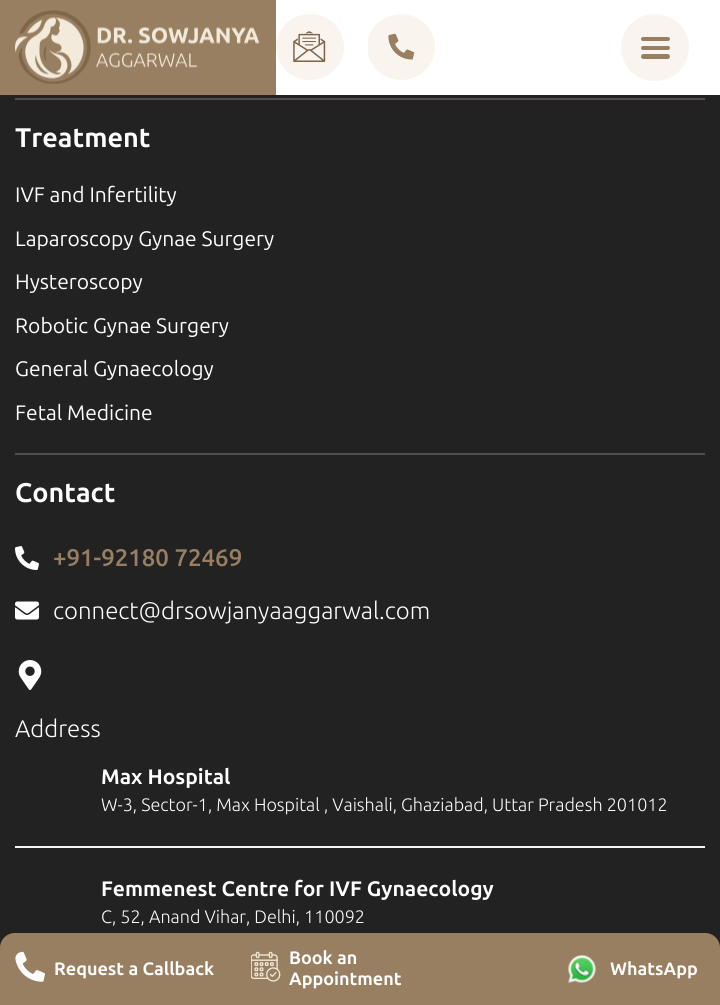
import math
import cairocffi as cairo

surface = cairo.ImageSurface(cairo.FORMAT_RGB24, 720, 1005)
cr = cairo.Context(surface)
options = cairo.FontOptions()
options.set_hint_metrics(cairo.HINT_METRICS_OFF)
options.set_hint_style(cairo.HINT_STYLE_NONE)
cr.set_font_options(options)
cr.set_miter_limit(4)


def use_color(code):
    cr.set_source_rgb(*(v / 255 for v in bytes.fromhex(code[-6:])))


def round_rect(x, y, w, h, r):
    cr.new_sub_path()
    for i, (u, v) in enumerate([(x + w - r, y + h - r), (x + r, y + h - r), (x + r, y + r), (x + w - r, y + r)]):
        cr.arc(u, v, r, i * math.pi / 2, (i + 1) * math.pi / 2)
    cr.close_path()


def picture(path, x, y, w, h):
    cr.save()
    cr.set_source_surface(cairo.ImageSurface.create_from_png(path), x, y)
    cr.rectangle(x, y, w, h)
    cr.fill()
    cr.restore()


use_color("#222222")
cr.paint()
use_color("#ffffff")
cr.rectangle(276, 0, 444, 95)
cr.fill()
use_color("#997f61")
cr.rectangle(0, 0, 276, 95)
cr.fill()
picture("img1.png", 15, 10, 245, 74)
picture("img2.png", 276, 14, 68, 66)
picture("img3.png", 368, 14, 67, 66)
use_color("#faf4ef")
round_rect(621, 14, 68, 67, 33.5)
cr.fill()
use_color("#997f61")
round_rect(641, 37, 29, 4, 2)
cr.fill()
round_rect(641, 46, 29, 4, 2)
cr.fill()
round_rect(641, 54, 29, 5, 2.5)
cr.fill()
use_color("#554c4c")
cr.rectangle(15, 98, 690, 2)
cr.fill()
cr.rectangle(15, 453, 690, 2)
cr.fill()
cr.select_font_face("Ubuntu", cairo.FONT_SLANT_NORMAL, cairo.FONT_WEIGHT_BOLD)
cr.set_font_size(27)
use_color("#ffffff")
cr.move_to(15, 147)
cr.show_text("Treatment")
cr.select_font_face("Ubuntu")
cr.set_font_size(21)
cr.move_to(15, 202)
cr.show_text("IVF and Infertility")
cr.move_to(15, 246)
cr.show_text("Laparoscopy Gynae Surgery")
cr.move_to(15, 289)
cr.show_text("Hysteroscopy")
cr.move_to(15, 333)
cr.show_text("Robotic Gynae Surgery")
cr.move_to(15, 376)
cr.show_text("General Gynaecology")
cr.move_to(15, 420)
cr.show_text("Fetal Medicine")
cr.select_font_face("Ubuntu", cairo.FONT_SLANT_NORMAL, cairo.FONT_WEIGHT_BOLD)
cr.set_font_size(27)
cr.move_to(15, 502)
cr.show_text("Contact")
picture("img4.png", 15, 546, 24, 24)
cr.select_font_face("Ubuntu SemiBold")
cr.set_font_size(24)
use_color("#997f61")
cr.move_to(53, 566)
cr.show_text("+91-92180 72469")
picture("img5.png", 15, 601, 24, 19)
cr.select_font_face("Ubuntu Light")
use_color("#ffffff")
cr.move_to(53, 619)
cr.show_text("connect@drsowjanyaaggarwal.com")
picture("img6.png", 18, 660, 24, 30)
cr.move_to(15, 737)
cr.show_text("Address")
use_color("#f5f5f5")
cr.rectangle(15, 846, 690, 2)
cr.fill()
cr.select_font_face("Ubuntu", cairo.FONT_SLANT_NORMAL, cairo.FONT_WEIGHT_BOLD)
cr.set_font_size(21)
use_color("#ffffff")
cr.move_to(101, 784)
cr.show_text("Max Hospital")
cr.select_font_face("Ubuntu Light")
cr.set_font_size(18)
cr.move_to(101, 811)
cr.show_text("W-3, Sector-1, Max Hospital , Vaishali, Ghaziabad, Uttar Pradesh 201012")
cr.select_font_face("Ubuntu", cairo.FONT_SLANT_NORMAL, cairo.FONT_WEIGHT_BOLD)
cr.set_font_size(21)
cr.move_to(101, 896)
cr.show_text("Femmenest Centre for IVF Gynaecology")
cr.select_font_face("Ubuntu Light")
cr.set_font_size(18)
cr.move_to(101, 923)
cr.show_text("C, 52, Anand Vihar, Delhi, 110092")
use_color("#997f61")
cr.new_path()
cr.move_to(15, 933)
cr.line_to(705, 933)
cr.curve_to(713.5, 933, 720, 939.5, 720, 948)
cr.line_to(720, 1005)
cr.line_to(0, 1005)
cr.line_to(0, 948)
cr.curve_to(0, 939.5, 6.5, 933, 15, 933)
cr.close_path()
cr.fill()
picture("img7.png", 15, 951, 30, 31)
cr.select_font_face("Ubuntu", cairo.FONT_SLANT_NORMAL, cairo.FONT_WEIGHT_BOLD)
use_color("#ffffff")
cr.move_to(54, 975)
cr.show_text("Request a Callback")
picture("img8.png", 251, 951, 30, 31)
cr.move_to(289, 964)
cr.show_text("Book an")
cr.move_to(289, 985)
cr.show_text("Appointment")
picture("img9.png", 568, 955, 28, 28)
cr.move_to(610, 975)
cr.show_text("WhatsApp")
surface.write_to_png("result.png")
